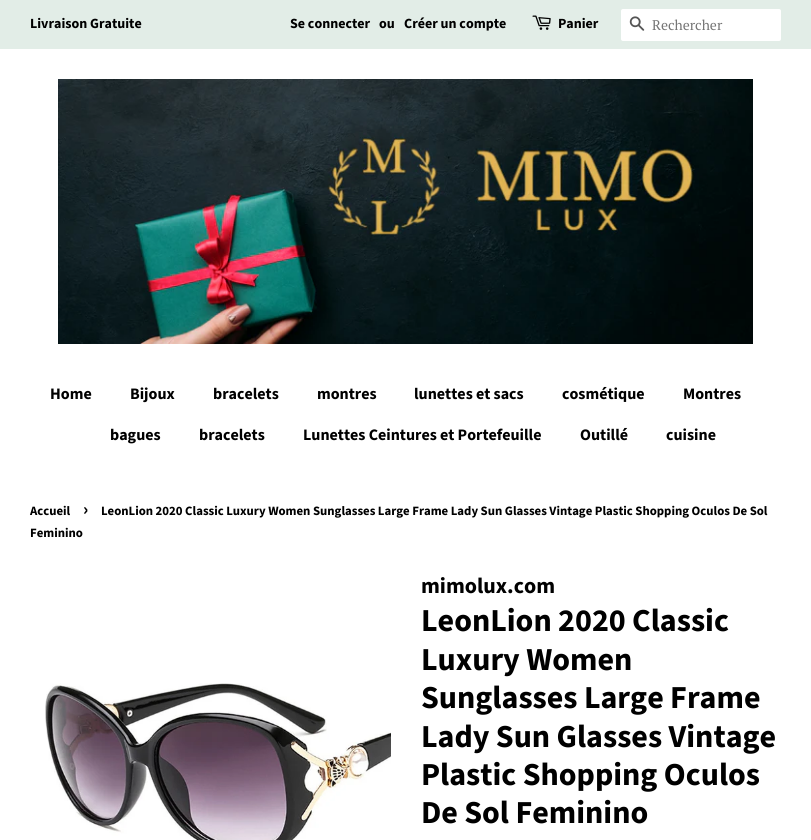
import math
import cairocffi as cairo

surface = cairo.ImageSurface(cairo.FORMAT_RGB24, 811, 840)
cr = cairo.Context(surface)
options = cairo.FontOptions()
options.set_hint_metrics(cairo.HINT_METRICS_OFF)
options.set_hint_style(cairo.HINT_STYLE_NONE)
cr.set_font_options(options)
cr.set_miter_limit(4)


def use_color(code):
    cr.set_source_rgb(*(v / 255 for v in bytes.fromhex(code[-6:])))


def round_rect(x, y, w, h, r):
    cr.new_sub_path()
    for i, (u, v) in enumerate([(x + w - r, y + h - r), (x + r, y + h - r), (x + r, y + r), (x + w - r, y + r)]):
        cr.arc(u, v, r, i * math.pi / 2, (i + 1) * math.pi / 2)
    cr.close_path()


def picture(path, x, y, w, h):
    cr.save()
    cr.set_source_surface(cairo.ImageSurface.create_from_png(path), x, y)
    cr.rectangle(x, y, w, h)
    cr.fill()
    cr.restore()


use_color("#ffffff")
cr.paint()
use_color("#e2ede7")
cr.rectangle(0, 0, 811, 49)
cr.fill()
cr.select_font_face("Source Sans Pro", cairo.FONT_SLANT_NORMAL, cairo.FONT_WEIGHT_BOLD)
cr.set_font_size(14)
use_color("#000000")
cr.move_to(30, 28)
cr.show_text("Livraison Gratuite")
cr.move_to(290, 28)
cr.show_text("Se connecter")
cr.move_to(379, 28)
cr.show_text("ou")
cr.move_to(404, 28)
cr.show_text("Créer un compte")
picture("img1.png", 532, 15, 19, 15)
cr.move_to(558, 28)
cr.show_text("Panier")
use_color("#ffffff")
round_rect(621, 9, 160, 32, 2)
cr.fill()
picture("img2.png", 629, 16, 16, 15)
cr.select_font_face("PT Serif")
use_color("#757575")
cr.move_to(652, 30)
cr.show_text("Rechercher")
picture("img3.png", 58, 79, 695, 265)
cr.select_font_face("Source Sans Pro", cairo.FONT_SLANT_NORMAL, cairo.FONT_WEIGHT_BOLD)
cr.set_font_size(16)
use_color("#000000")
cr.move_to(50, 399)
cr.show_text("Home")
cr.move_to(130, 399)
cr.show_text("Bijoux")
cr.move_to(213, 399)
cr.show_text("bracelets")
cr.move_to(317, 399)
cr.show_text("montres")
cr.move_to(414, 399)
cr.show_text("lunettes et sacs")
cr.move_to(562, 399)
cr.show_text("cosmétique")
cr.move_to(683, 399)
cr.show_text("Montres")
cr.move_to(110, 440)
cr.show_text("bagues")
cr.move_to(199, 440)
cr.show_text("bracelets")
cr.move_to(303, 440)
cr.show_text("Lunettes Ceintures et Portefeuille")
cr.move_to(580, 440)
cr.show_text("Outillé")
cr.move_to(666, 440)
cr.show_text("cuisine")
cr.set_font_size(12.75)
cr.move_to(30, 515)
cr.show_text("Accueil")
cr.set_font_size(18)
cr.move_to(83, 515)
cr.show_text("›")
cr.set_font_size(12.75)
cr.move_to(101, 515)
cr.show_text("LeonLion 2020 Classic Luxury Women Sunglasses Large Frame Lady Sun Glasses Vintage Plastic Shopping Oculos De Sol")
cr.move_to(30, 537)
cr.show_text("Feminino")
picture("img4.png", 45, 683, 346, 157)
cr.set_font_size(22)
cr.move_to(421, 593)
cr.show_text("mimolux.com")
cr.set_font_size(32)
cr.move_to(421, 631)
cr.show_text("LeonLion 2020 Classic")
cr.move_to(421, 670)
cr.show_text("Luxury Women")
cr.move_to(421, 708)
cr.show_text("Sunglasses Large Frame")
cr.move_to(421, 747)
cr.show_text("Lady Sun Glasses Vintage")
cr.move_to(421, 785)
cr.show_text("Plastic Shopping Oculos")
cr.move_to(421, 823)
cr.show_text("De Sol Feminino")
surface.write_to_png("result.png")
